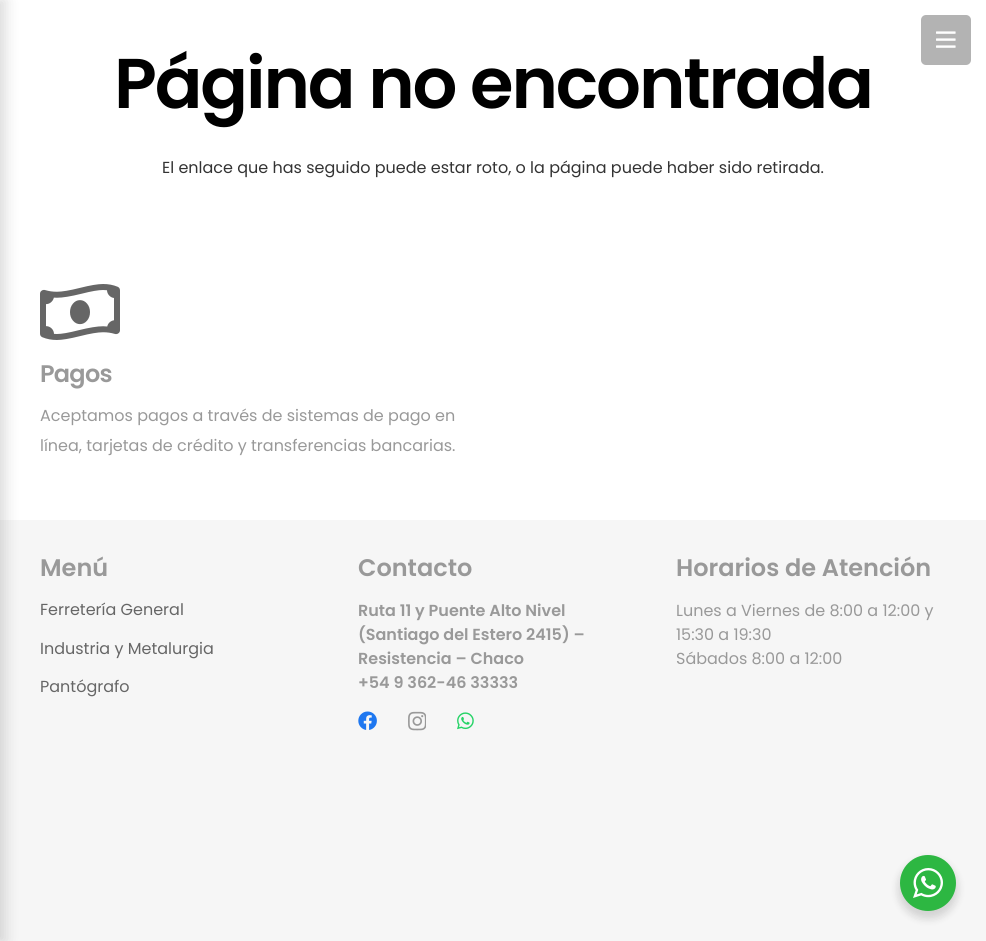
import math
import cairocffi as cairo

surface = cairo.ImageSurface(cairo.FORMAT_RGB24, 986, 941)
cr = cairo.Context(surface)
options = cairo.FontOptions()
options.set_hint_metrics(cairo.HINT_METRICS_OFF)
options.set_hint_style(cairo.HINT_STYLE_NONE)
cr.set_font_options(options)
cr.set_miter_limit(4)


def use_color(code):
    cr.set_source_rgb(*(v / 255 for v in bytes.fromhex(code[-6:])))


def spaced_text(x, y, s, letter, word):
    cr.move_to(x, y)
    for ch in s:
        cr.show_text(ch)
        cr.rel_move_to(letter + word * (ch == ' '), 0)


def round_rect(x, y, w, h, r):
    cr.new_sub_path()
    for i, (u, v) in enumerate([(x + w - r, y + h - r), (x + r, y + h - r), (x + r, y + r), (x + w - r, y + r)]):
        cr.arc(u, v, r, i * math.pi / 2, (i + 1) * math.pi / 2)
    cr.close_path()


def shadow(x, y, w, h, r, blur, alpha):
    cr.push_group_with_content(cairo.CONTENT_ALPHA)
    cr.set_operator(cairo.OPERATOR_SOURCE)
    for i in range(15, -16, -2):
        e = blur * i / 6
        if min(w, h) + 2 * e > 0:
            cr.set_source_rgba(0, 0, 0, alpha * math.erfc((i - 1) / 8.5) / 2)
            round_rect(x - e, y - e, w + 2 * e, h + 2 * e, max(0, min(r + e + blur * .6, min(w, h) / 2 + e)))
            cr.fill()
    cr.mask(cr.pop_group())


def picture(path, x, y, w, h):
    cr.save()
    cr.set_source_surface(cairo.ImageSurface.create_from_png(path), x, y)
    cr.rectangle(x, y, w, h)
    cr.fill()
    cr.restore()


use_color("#f6f6f6")
cr.paint()
use_color("#ffffff")
cr.rectangle(0, 0, 986, 520)
cr.fill()
use_color("#b3b3b3")
round_rect(921, 15, 50, 50, 5)
cr.fill()
picture("img1.png", 936, 31, 20, 17)
use_color("#000000")
shadow(-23, 0, 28, 941, 0, 7.5, 0.15)
cr.select_font_face("Poppins SemiBold")
cr.set_font_size(70.4)
use_color("#000000")
spaced_text(114, 108, "Página no encontrada", -2.1, 0)
cr.select_font_face("Poppins")
cr.set_font_size(16)
use_color("#333333")
cr.move_to(162, 173)
cr.show_text("El enlace que has seguido puede estar roto, o la página puede haber sido retirada.")
picture("img2.png", 40, 284, 80, 56)
cr.select_font_face("Poppins SemiBold")
cr.set_font_size(24)
use_color("#999999")
spaced_text(40, 382, "Pagos", -0.75, 0)
cr.select_font_face("Poppins")
cr.set_font_size(16)
cr.move_to(40, 421)
cr.show_text("Aceptamos pagos a través de sistemas de pago en")
cr.move_to(40, 451)
cr.show_text("línea, tarjetas de crédito y transferencias bancarias.")
cr.select_font_face("Poppins SemiBold")
cr.set_font_size(24)
cr.move_to(40, 576)
cr.show_text("Menú")
cr.select_font_face("Poppins")
cr.set_font_size(16)
use_color("#666666")
cr.move_to(40, 615)
cr.show_text("Ferretería General")
cr.move_to(40, 654)
cr.show_text("Industria y Metalurgia")
cr.move_to(40, 692)
cr.show_text("Pantógrafo")
cr.select_font_face("Poppins SemiBold")
cr.set_font_size(24)
use_color("#999999")
cr.move_to(358, 576)
cr.show_text("Contacto")
cr.set_font_size(16)
cr.move_to(358, 616)
cr.show_text("Ruta 11 y Puente Alto Nivel")
cr.move_to(358, 640)
cr.show_text("(Santiago del Estero 2415) –")
cr.move_to(358, 664)
cr.show_text("Resistencia – Chaco")
cr.move_to(358, 688)
cr.show_text("+54 9 362-46 33333")
picture("img3.png", 358, 711, 19, 19)
picture("img4.png", 408, 711, 18, 20)
picture("img5.png", 457, 712, 17, 18)
cr.set_font_size(24)
cr.move_to(676, 576)
cr.show_text("Horarios de Atención")
cr.select_font_face("Poppins")
cr.set_font_size(16)
cr.move_to(676, 616)
cr.show_text("Lunes a Viernes de 8:00 a 12:00 y")
cr.move_to(676, 640)
cr.show_text("15:30 a 19:30")
cr.move_to(676, 664)
cr.show_text("Sábados 8:00 a 12:00")
use_color("#000000")
shadow(898, 859, 60, 60, 30, 4, 0.14)
use_color("#2db742")
cr.arc(928, 883, 28, 0, 2 * math.pi)
cr.fill()
picture("img6.png", 913, 868, 30, 30)
surface.write_to_png("result.png")
